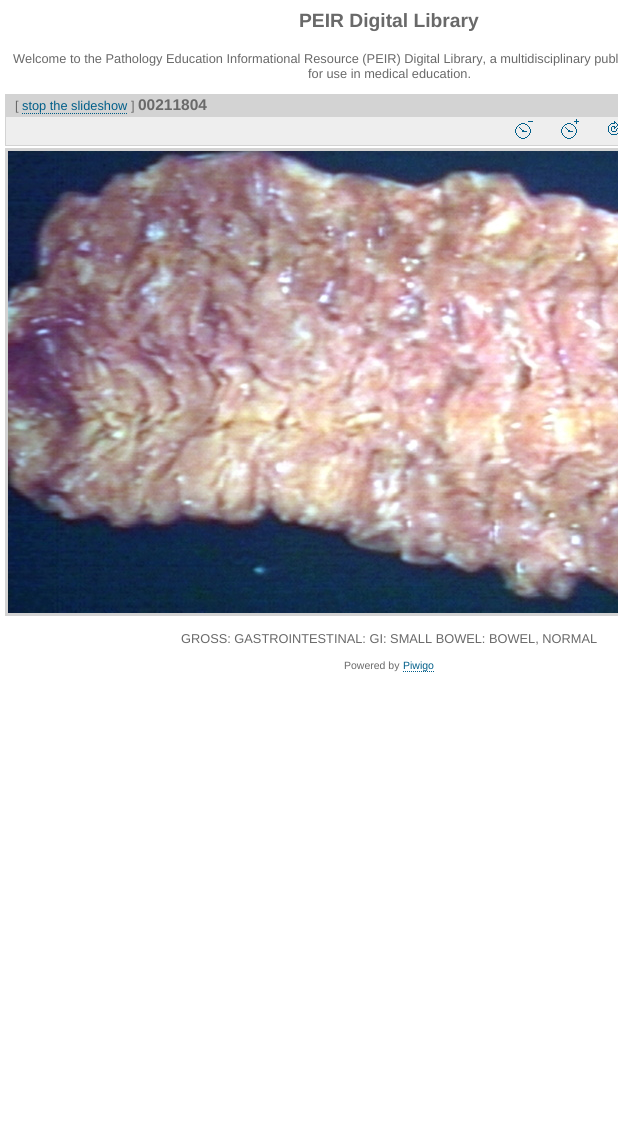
import math
import cairocffi as cairo

surface = cairo.ImageSurface(cairo.FORMAT_RGB24, 618, 1122)
cr = cairo.Context(surface)
options = cairo.FontOptions()
options.set_hint_metrics(cairo.HINT_METRICS_OFF)
options.set_hint_style(cairo.HINT_STYLE_NONE)
cr.set_font_options(options)
cr.set_miter_limit(4)


def use_color(code):
    cr.set_source_rgb(*(v / 255 for v in bytes.fromhex(code[-6:])))


def picture(path, x, y, w, h):
    cr.save()
    cr.set_source_surface(cairo.ImageSurface.create_from_png(path), x, y)
    cr.rectangle(x, y, w, h)
    cr.fill()
    cr.restore()


use_color("#ffffff")
cr.paint()
cr.select_font_face("Liberation Sans", cairo.FONT_SLANT_NORMAL, cairo.FONT_WEIGHT_BOLD)
cr.set_font_size(19.25)
use_color("#696969")
cr.move_to(299, 27)
cr.show_text("PEIR Digital Library")
cr.select_font_face("Liberation Sans")
cr.set_font_size(12.8)
cr.move_to(13, 63)
cr.show_text("Welcome to the Pathology Education Informational Resource (PEIR) Digital Library, a multidisciplinary publ")
cr.move_to(308, 78)
cr.show_text("for use in medical education.")
use_color("#d3d3d3")
cr.rectangle(5, 94, 613, 22)
cr.fill()
use_color("#696969")
cr.move_to(15, 110)
cr.show_text("[")
use_color("#005e89")
cr.move_to(22, 110)
cr.show_text("stop the slideshow")
cr.new_path()
cr.move_to(22, 113.5)
cr.line_to(127, 113.5)
cr.set_line_width(1)
cr.set_dash([1, 1])
cr.stroke()
use_color("#696969")
cr.move_to(131, 110)
cr.show_text("]")
cr.select_font_face("Liberation Sans", cairo.FONT_SLANT_NORMAL, cairo.FONT_WEIGHT_BOLD)
cr.set_font_size(15.5)
cr.move_to(138, 110)
cr.show_text("00211804")
use_color("#eeeeee")
cr.rectangle(5.5, 116.5, 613, 29)
cr.fill_preserve()
use_color("#d3d3d3")
cr.set_dash([])
cr.stroke()
picture("img1.png", 515, 121, 18, 18)
picture("img2.png", 561, 119, 18, 20)
picture("img3.png", 608, 121, 10, 14)
cr.rectangle(6.5, 149.5, 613, 465)
cr.set_line_width(3)
cr.stroke()
picture("img4.png", 8, 151, 610, 462)
cr.select_font_face("Liberation Sans")
cr.set_font_size(12.8)
use_color("#696969")
cr.move_to(181, 643)
cr.show_text("GROSS: GASTROINTESTINAL: GI: SMALL BOWEL: BOWEL, NORMAL")
cr.set_font_size(10.5)
cr.move_to(344, 669)
cr.show_text("Powered by")
cr.new_path()
cr.move_to(403, 671.5)
cr.line_to(434, 671.5)
use_color("#005e89")
cr.set_line_width(1)
cr.set_dash([1, 1])
cr.stroke()
cr.move_to(403, 669)
cr.show_text("Piwigo")
surface.write_to_png("result.png")
